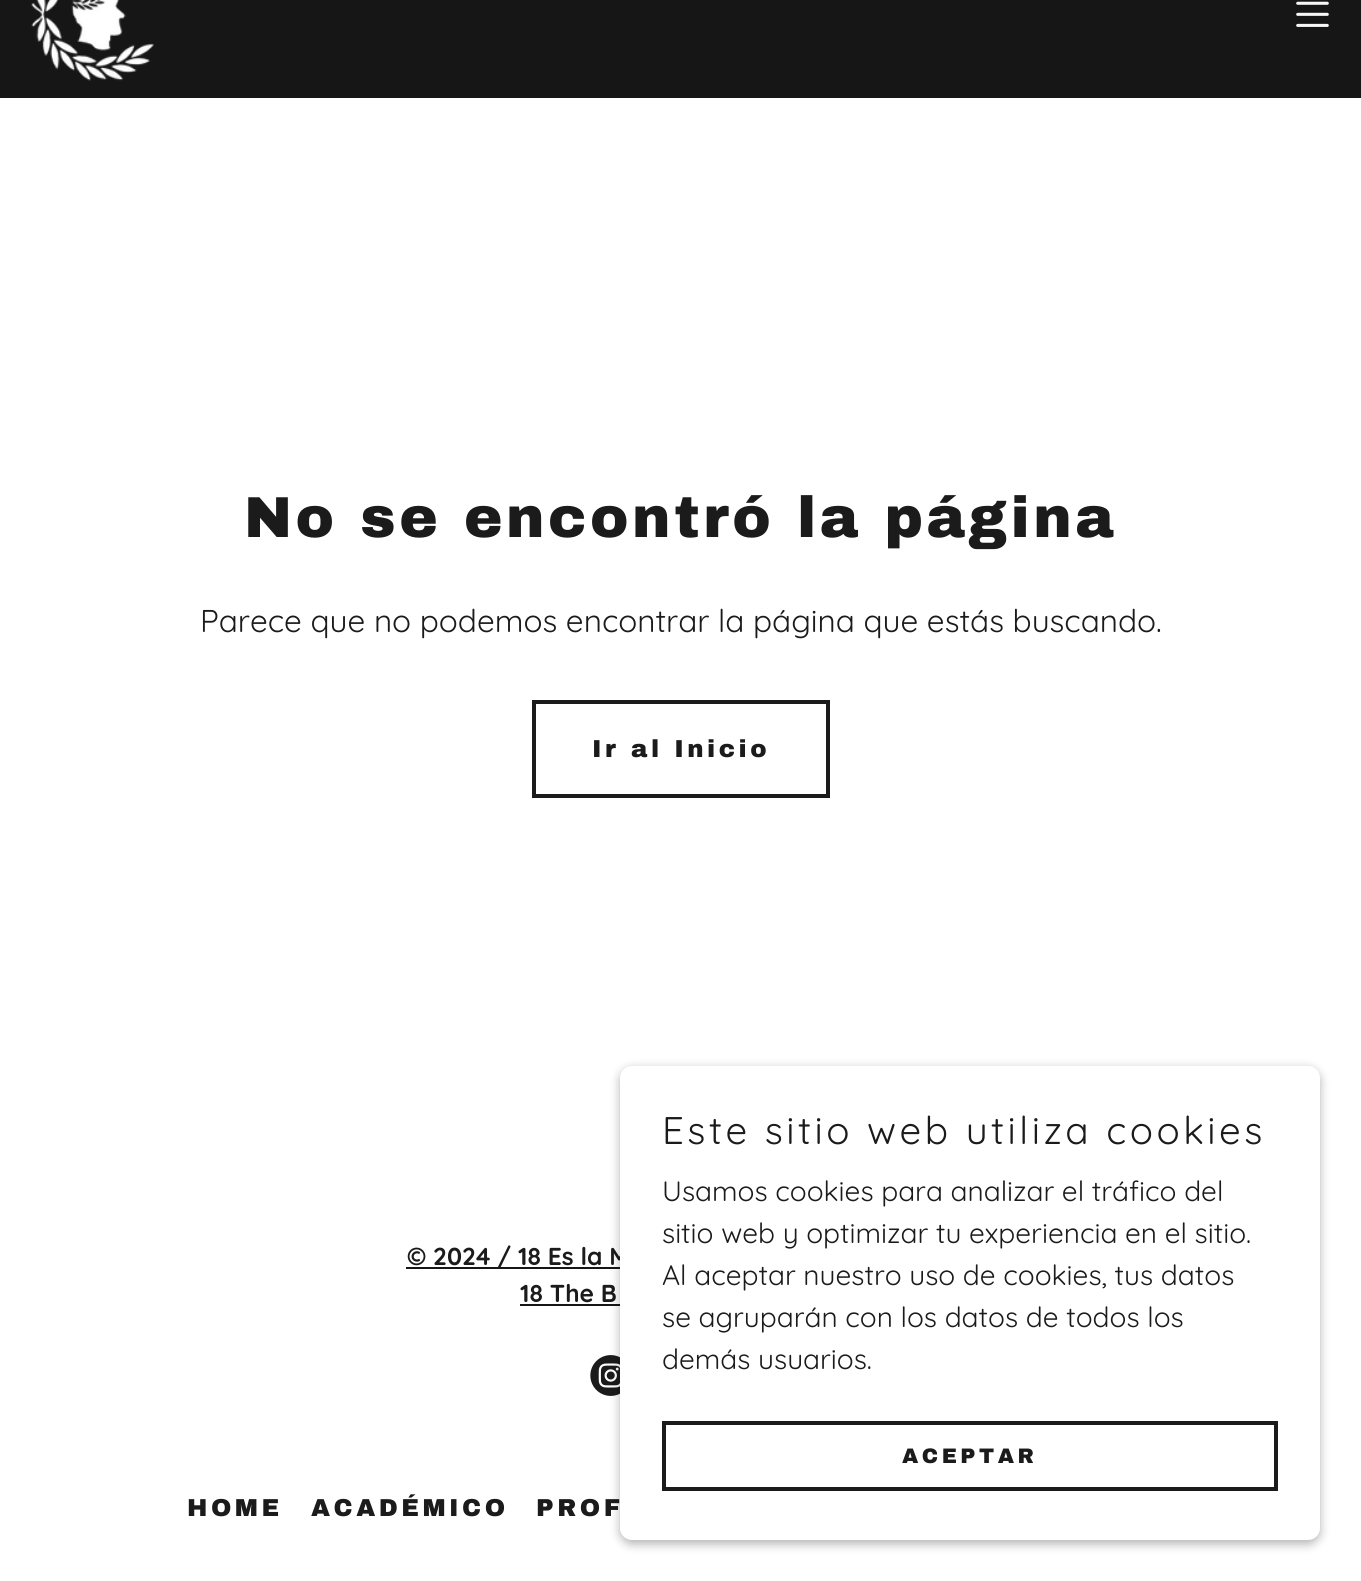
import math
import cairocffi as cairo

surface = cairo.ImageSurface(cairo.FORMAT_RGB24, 1361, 1581)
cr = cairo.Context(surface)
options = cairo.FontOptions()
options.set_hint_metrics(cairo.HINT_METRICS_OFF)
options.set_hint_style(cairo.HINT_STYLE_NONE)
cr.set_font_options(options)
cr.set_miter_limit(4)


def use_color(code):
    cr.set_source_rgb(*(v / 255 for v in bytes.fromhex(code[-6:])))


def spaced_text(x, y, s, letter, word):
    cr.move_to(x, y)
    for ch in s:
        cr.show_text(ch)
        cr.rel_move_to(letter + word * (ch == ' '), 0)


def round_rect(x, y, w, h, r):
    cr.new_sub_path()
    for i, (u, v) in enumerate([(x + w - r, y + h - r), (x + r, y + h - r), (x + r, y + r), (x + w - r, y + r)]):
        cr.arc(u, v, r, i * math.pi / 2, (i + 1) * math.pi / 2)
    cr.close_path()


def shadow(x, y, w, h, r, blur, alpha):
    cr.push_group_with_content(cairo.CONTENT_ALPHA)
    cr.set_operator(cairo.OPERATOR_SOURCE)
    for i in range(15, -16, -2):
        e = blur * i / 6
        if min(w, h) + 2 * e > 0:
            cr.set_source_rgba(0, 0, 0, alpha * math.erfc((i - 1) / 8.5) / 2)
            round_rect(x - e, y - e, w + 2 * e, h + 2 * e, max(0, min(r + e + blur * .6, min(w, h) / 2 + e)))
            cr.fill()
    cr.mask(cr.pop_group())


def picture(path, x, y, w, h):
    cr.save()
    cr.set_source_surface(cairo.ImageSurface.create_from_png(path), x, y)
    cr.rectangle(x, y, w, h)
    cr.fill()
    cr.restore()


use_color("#ffffff")
cr.paint()
use_color("#161616")
cr.rectangle(0, 0, 1361, 98)
cr.fill()
picture("img1.png", 31, 0, 123, 81)
picture("img2.png", 1296, 1, 33, 26)
cr.select_font_face("Archivo Black Black")
cr.set_font_size(57.75)
use_color("#1b1b1b")
spaced_text(244, 537, "No se encontró la página", 3.5, 0)
cr.select_font_face("Quicksand")
cr.set_font_size(31.5)
cr.move_to(200, 632)
cr.show_text("Parece que no podemos encontrar la página que estás buscando.")
cr.rectangle(534, 702, 294, 94)
cr.set_line_width(4)
cr.stroke()
cr.select_font_face("Archivo Black Black")
cr.set_font_size(24.5)
spaced_text(592, 757, "Ir al Inicio", 3.5, 0)
use_color("#161616")
cr.rectangle(406, 1267, 214, 2)
cr.fill()
cr.select_font_face("Quicksand", cairo.FONT_SLANT_NORMAL, cairo.FONT_WEIGHT_BOLD)
use_color("#1b1b1b")
cr.move_to(407, 1265)
cr.show_text("© 2024 / 18 Es la M")
cr.move_to(520, 1302)
cr.show_text("18 The B")
use_color("#161616")
cr.rectangle(520, 1304, 100, 2)
cr.fill()
picture("img3.png", 590, 1355, 30, 41)
cr.select_font_face("Archivo Black Black")
use_color("#1b1b1b")
spaced_text(187, 1516, "HOME", 3.5, 0)
spaced_text(311, 1516, "ACADÉMICO", 3.5, 0)
spaced_text(536, 1516, "PROF", 3.5, 0)
use_color("#000000")
shadow(620, 1069, 700, 475, 12, 5, 0.3)
use_color("#ffffff")
round_rect(620, 1066, 700, 474, 12)
cr.fill()
cr.select_font_face("Quicksand")
cr.set_font_size(38.5)
use_color("#1b1b1b")
spaced_text(662, 1144, "Este sitio web utiliza cookies", 3.5, 0)
cr.set_font_size(28)
cr.move_to(662, 1201)
cr.show_text("Usamos cookies para analizar el tráfico del")
cr.move_to(662, 1243)
cr.show_text("sitio web y optimizar tu experiencia en el sitio.")
cr.move_to(662, 1285)
cr.show_text("Al aceptar nuestro uso de cookies, tus datos")
cr.move_to(662, 1327)
cr.show_text("se agruparán con los datos de todos los")
cr.move_to(662, 1369)
cr.show_text("demás usuarios.")
cr.rectangle(664, 1423, 612, 66)
cr.stroke()
cr.select_font_face("Archivo Black Black")
cr.set_font_size(21)
spaced_text(902, 1463, "ACEPTAR", 3.5, 0)
surface.write_to_png("result.png")
